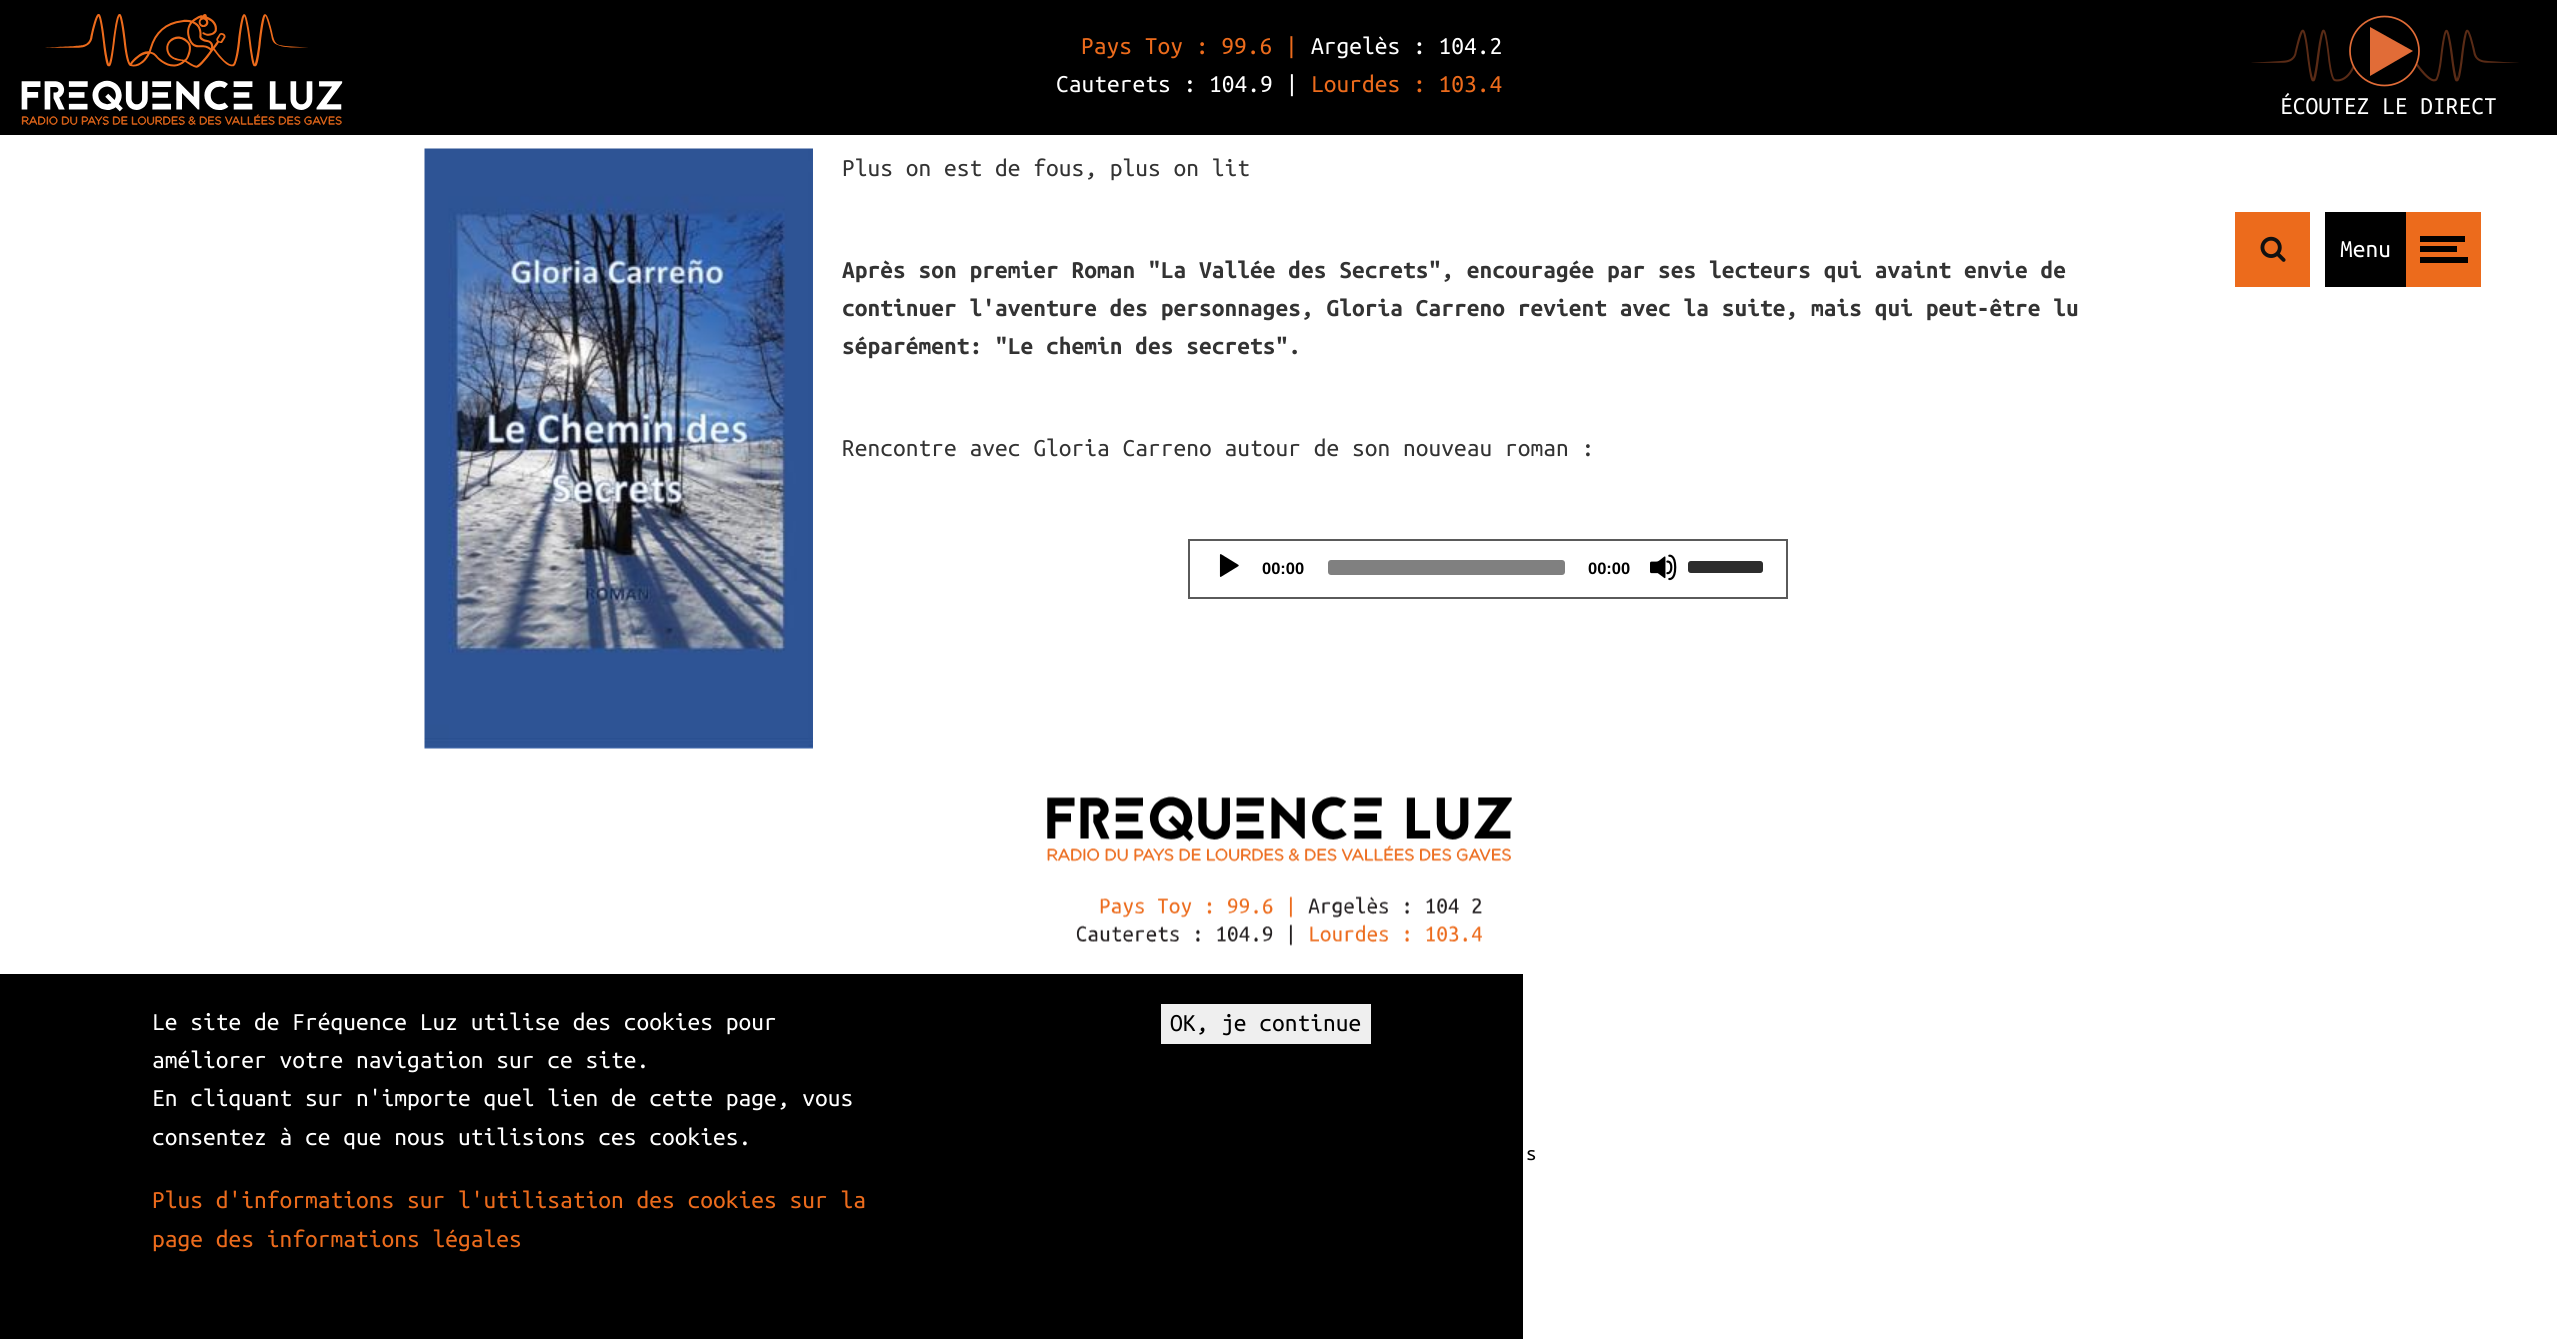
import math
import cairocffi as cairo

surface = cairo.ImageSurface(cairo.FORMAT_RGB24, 2557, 1339)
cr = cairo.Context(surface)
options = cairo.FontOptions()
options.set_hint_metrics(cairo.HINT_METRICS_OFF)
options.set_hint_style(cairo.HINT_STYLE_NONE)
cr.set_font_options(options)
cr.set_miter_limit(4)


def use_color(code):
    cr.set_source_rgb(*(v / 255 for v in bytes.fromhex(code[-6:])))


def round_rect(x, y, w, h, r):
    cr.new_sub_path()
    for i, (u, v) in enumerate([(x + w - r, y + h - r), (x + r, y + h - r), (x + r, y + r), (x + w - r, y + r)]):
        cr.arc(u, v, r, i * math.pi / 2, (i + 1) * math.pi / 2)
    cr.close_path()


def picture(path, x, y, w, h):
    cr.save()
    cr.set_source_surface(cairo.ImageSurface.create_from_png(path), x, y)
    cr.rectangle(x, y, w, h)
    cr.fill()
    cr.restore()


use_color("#ffffff")
cr.paint()
use_color("#000000")
cr.rectangle(0, 0, 2557, 135)
cr.fill()
picture("img1.png", 21, 14, 322, 112)
cr.select_font_face("Ubuntu Mono")
cr.set_font_size(25.5)
use_color("#ec6b1c")
cr.move_to(1081, 54)
cr.show_text("Pays Toy : 99.6 |")
use_color("#ffffff")
cr.move_to(1311, 54)
cr.show_text("Argelès : 104.2")
cr.move_to(1056, 92)
cr.show_text("Cauterets : 104.9 |")
use_color("#ec6b1c")
cr.move_to(1311, 92)
cr.show_text("Lourdes : 103.4")
cr.new_path()
cr.arc(2384.5, 51, 34.5, 0, 2 * math.pi)
use_color("#e16c37")
cr.set_line_width(1.7)
cr.stroke()
cr.new_path()
cr.move_to(2370, 76)
cr.line_to(2413, 51)
cr.line_to(2370, 27)
cr.close_path()
cr.fill()
picture("img2.png", 2251, 29, 268, 53)
use_color("#ffffff")
cr.move_to(2280, 114)
cr.show_text("ÉCOUTEZ LE DIRECT")
use_color("#000000")
cr.rectangle(0, 974, 1523, 365)
cr.fill()
use_color("#ffffff")
cr.move_to(152, 1030)
cr.show_text("Le site de Fréquence Luz utilise des cookies pour")
cr.move_to(152, 1068)
cr.show_text("améliorer votre navigation sur ce site.")
cr.move_to(152, 1106)
cr.show_text("En cliquant sur n'importe quel lien de cette page, vous")
cr.move_to(152, 1145)
cr.show_text("consentez à ce que nous utilisions ces cookies.")
use_color("#ec6b1c")
cr.move_to(152, 1208)
cr.show_text("Plus d'informations sur l'utilisation des cookies sur la")
cr.move_to(152, 1247)
cr.show_text("page des informations légales")
use_color("#efefef")
cr.rectangle(1161, 1004, 210, 40)
cr.fill()
use_color("#000000")
cr.move_to(1170, 1031)
cr.show_text("OK, je continue")
picture("img3.png", 424, 148, 389, 601)
use_color("#333333")
cr.move_to(842, 176)
cr.show_text("Plus on est de fous, plus on lit")
cr.select_font_face("Ubuntu Mono", cairo.FONT_SLANT_NORMAL, cairo.FONT_WEIGHT_BOLD)
cr.move_to(842, 278)
cr.show_text("Après son premier Roman \"La Vallée des Secrets\", encouragée par ses lecteurs qui avaint envie de")
cr.move_to(842, 316)
cr.show_text("continuer l'aventure des personnages, Gloria Carreno revient avec la suite, mais qui peut-être lu")
cr.move_to(842, 354)
cr.show_text("séparément: \"Le chemin des secrets\".")
cr.select_font_face("Ubuntu Mono")
cr.move_to(842, 456)
cr.show_text("Rencontre avec Gloria Carreno autour de son nouveau roman :")
cr.rectangle(1189, 540, 598, 58)
use_color("#5a5a5a")
cr.set_line_width(2)
cr.stroke()
picture("img4.png", 1219, 554, 20, 23)
cr.select_font_face("Liberation Sans", cairo.FONT_SLANT_NORMAL, cairo.FONT_WEIGHT_BOLD)
cr.set_font_size(16.5)
use_color("#000000")
cr.move_to(1262, 574)
cr.show_text("00:00")
use_color("#808080")
round_rect(1328, 560, 237, 15, 3)
cr.fill()
use_color("#000000")
cr.move_to(1588, 574)
cr.show_text("00:00")
picture("img5.png", 1650, 554, 27, 27)
use_color("#5b5b5b")
round_rect(1688, 561, 75, 12, 3)
cr.fill()
cr.set_source_rgba(0, 0, 0, 0.5)
round_rect(1688, 561, 75, 12, 3)
cr.fill()
picture("img6.png", 1047, 796, 465, 150)
cr.select_font_face("Ubuntu Mono")
cr.set_font_size(21)
use_color("#000000")
cr.move_to(1526, 1160)
cr.show_text("s")
use_color("#ec6b1c")
cr.rectangle(2235, 212, 75, 75)
cr.fill()
picture("img7.png", 2260, 236, 26, 26)
use_color("#000000")
cr.rectangle(2325, 212, 81, 75)
cr.fill()
cr.set_font_size(25.5)
use_color("#ffffff")
cr.move_to(2340, 257)
cr.show_text("Menu")
use_color("#ec6b1c")
cr.rectangle(2406, 212, 75, 75)
cr.fill()
use_color("#000000")
cr.rectangle(2420, 236, 45, 6)
cr.fill()
cr.rectangle(2420, 246, 37, 6)
cr.fill()
cr.rectangle(2420, 257, 48, 6)
cr.fill()
surface.write_to_png("result.png")
